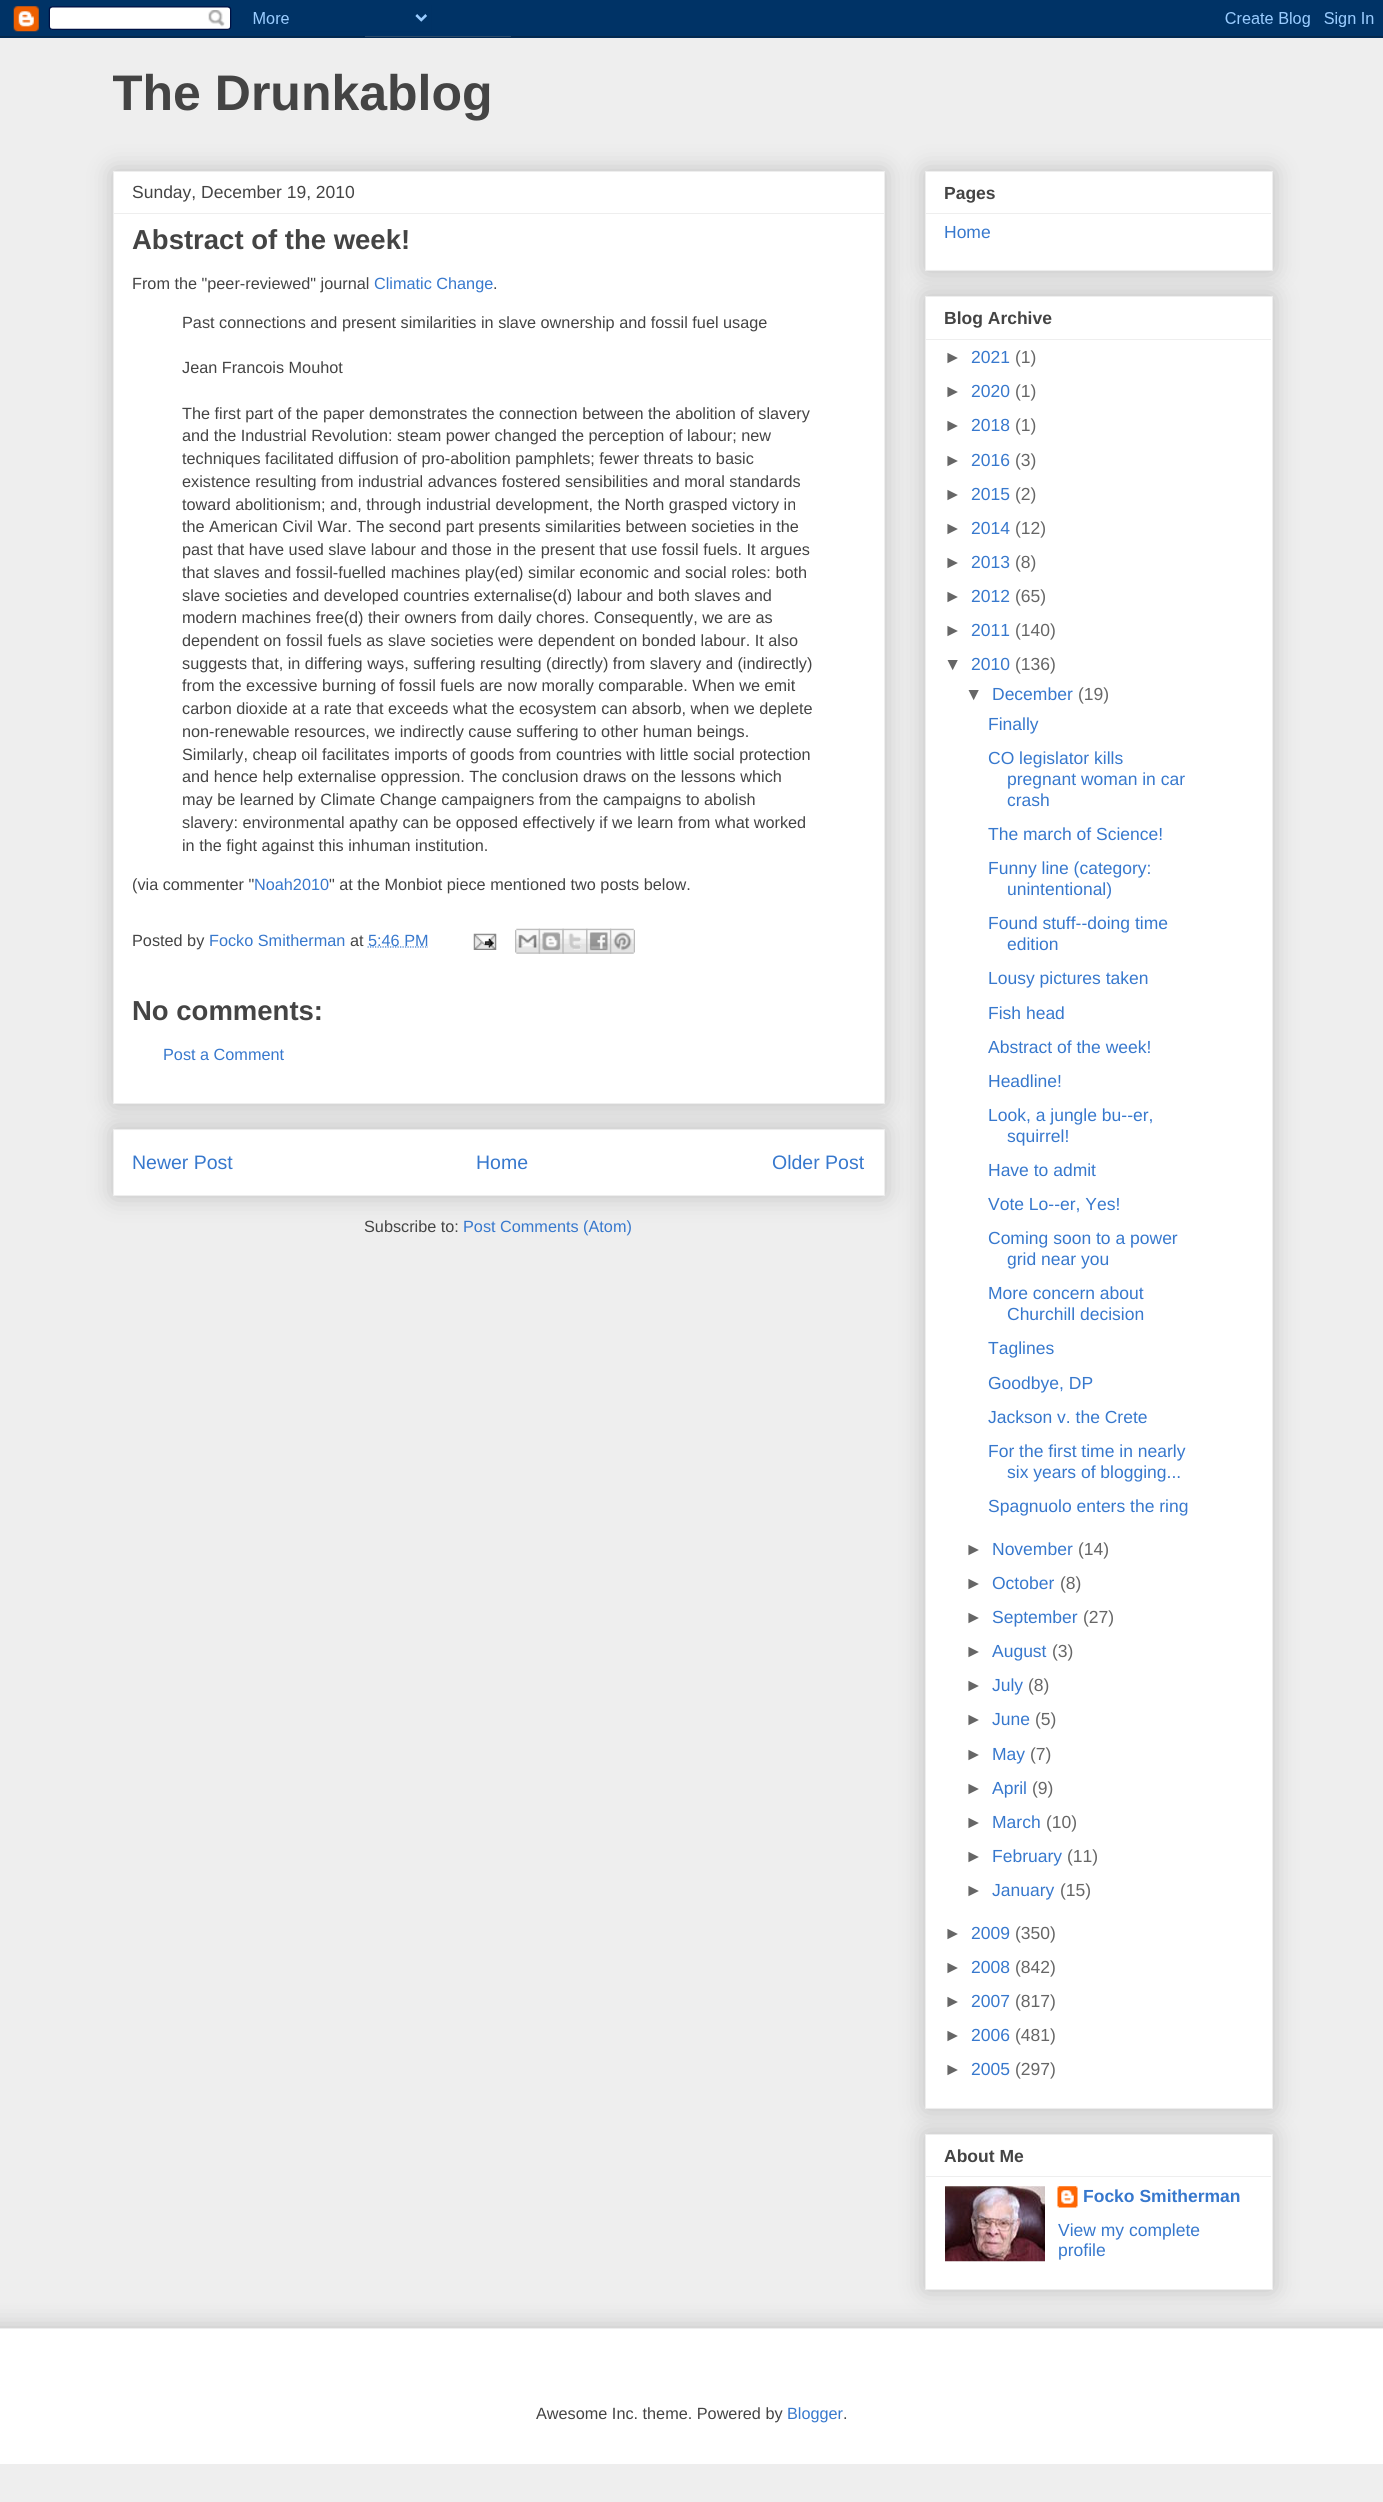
import math
import cairocffi as cairo

surface = cairo.ImageSurface(cairo.FORMAT_RGB24, 1383, 2502)
cr = cairo.Context(surface)
options = cairo.FontOptions()
options.set_hint_metrics(cairo.HINT_METRICS_OFF)
options.set_hint_style(cairo.HINT_STYLE_NONE)
cr.set_font_options(options)
cr.set_miter_limit(4)


def use_color(code):
    cr.set_source_rgb(*(v / 255 for v in bytes.fromhex(code[-6:])))


def round_rect(x, y, w, h, r):
    cr.new_sub_path()
    for i, (u, v) in enumerate([(x + w - r, y + h - r), (x + r, y + h - r), (x + r, y + r), (x + w - r, y + r)]):
        cr.arc(u, v, r, i * math.pi / 2, (i + 1) * math.pi / 2)
    cr.close_path()


def shadow(x, y, w, h, r, blur, alpha):
    cr.push_group_with_content(cairo.CONTENT_ALPHA)
    cr.set_operator(cairo.OPERATOR_SOURCE)
    for i in range(15, -16, -2):
        e = blur * i / 6
        if min(w, h) + 2 * e > 0:
            cr.set_source_rgba(0, 0, 0, alpha * math.erfc((i - 1) / 8.5) / 2)
            round_rect(x - e, y - e, w + 2 * e, h + 2 * e, max(0, min(r + e + blur * .6, min(w, h) / 2 + e)))
            cr.fill()
    cr.mask(cr.pop_group())


def picture(path, x, y, w, h):
    cr.save()
    cr.set_source_surface(cairo.ImageSurface.create_from_png(path), x, y)
    cr.rectangle(x, y, w, h)
    cr.fill()
    cr.restore()


use_color("#eeeeee")
cr.paint()
picture("img1.png", 0, 0, 1383, 38)
cr.save()
cr.rectangle(113, 38, 1160, 96)
cr.clip()
cr.select_font_face("Liberation Sans", cairo.FONT_SLANT_NORMAL, cairo.FONT_WEIGHT_BOLD)
cr.set_font_size(50)
use_color("#444444")
cr.move_to(112, 110)
cr.show_text("The Drunkablog")
cr.restore()
use_color("#000000")
shadow(113, 1129, 772, 67, 0, 12.5, 0.2)
use_color("#ffffff")
cr.rectangle(113.5, 1129.5, 771, 66)
cr.fill_preserve()
use_color("#eeeeee")
cr.set_line_width(1)
cr.stroke()
use_color("#000000")
shadow(113, 171, 772, 933, 0, 12.5, 0.2)
use_color("#ffffff")
cr.rectangle(113.5, 171.5, 771, 932)
cr.fill_preserve()
use_color("#eeeeee")
cr.stroke()
cr.select_font_face("Liberation Sans")
cr.set_font_size(17.5)
use_color("#444444")
cr.move_to(132, 198)
cr.show_text("Sunday, December 19, 2010")
use_color("#eeeeee")
cr.rectangle(114, 213, 770, 1)
cr.fill()
cr.select_font_face("Liberation Sans", cairo.FONT_SLANT_NORMAL, cairo.FONT_WEIGHT_BOLD)
cr.set_font_size(27.5)
use_color("#444444")
cr.move_to(132, 249)
cr.show_text("Abstract of the week!")
cr.select_font_face("Liberation Sans")
cr.set_font_size(16.25)
cr.move_to(132, 289)
cr.show_text("From the \"peer-reviewed\" journal")
use_color("#3778cd")
cr.move_to(374, 289)
cr.show_text("Climatic Change")
use_color("#444444")
cr.move_to(493, 289)
cr.show_text(".")
cr.move_to(182, 328)
cr.show_text("Past connections and present similarities in slave ownership and fossil fuel usage")
cr.move_to(182, 373)
cr.show_text("Jean Francois Mouhot")
cr.move_to(182, 419)
cr.show_text("The first part of the paper demonstrates the connection between the abolition of slavery")
cr.move_to(182, 441)
cr.show_text("and the Industrial Revolution: steam power changed the perception of labour; new")
cr.move_to(182, 464)
cr.show_text("techniques facilitated diffusion of pro-abolition pamphlets; fewer threats to basic")
cr.move_to(182, 487)
cr.show_text("existence resulting from industrial advances fostered sensibilities and moral standards")
cr.move_to(182, 510)
cr.show_text("toward abolitionism; and, through industrial development, the North grasped victory in")
cr.move_to(182, 532)
cr.show_text("the American Civil War. The second part presents similarities between societies in the")
cr.move_to(182, 555)
cr.show_text("past that have used slave labour and those in the present that use fossil fuels. It argues")
cr.move_to(182, 578)
cr.show_text("that slaves and fossil-fuelled machines play(ed) similar economic and social roles: both")
cr.move_to(182, 601)
cr.show_text("slave societies and developed countries externalise(d) labour and both slaves and")
cr.move_to(182, 623)
cr.show_text("modern machines free(d) their owners from daily chores. Consequently, we are as")
cr.move_to(182, 646)
cr.show_text("dependent on fossil fuels as slave societies were dependent on bonded labour. It also")
cr.move_to(182, 669)
cr.show_text("suggests that, in differing ways, suffering resulting (directly) from slavery and (indirectly)")
cr.move_to(182, 691)
cr.show_text("from the excessive burning of fossil fuels are now morally comparable. When we emit")
cr.move_to(182, 714)
cr.show_text("carbon dioxide at a rate that exceeds what the ecosystem can absorb, when we deplete")
cr.move_to(182, 737)
cr.show_text("non-renewable resources, we indirectly cause suffering to other human beings.")
cr.move_to(182, 760)
cr.show_text("Similarly, cheap oil facilitates imports of goods from countries with little social protection")
cr.move_to(182, 782)
cr.show_text("and hence help externalise oppression. The conclusion draws on the lessons which")
cr.move_to(182, 805)
cr.show_text("may be learned by Climate Change campaigners from the campaigns to abolish")
cr.move_to(182, 828)
cr.show_text("slavery: environmental apathy can be opposed effectively if we learn from what worked")
cr.move_to(182, 851)
cr.show_text("in the fight against this inhuman institution.")
cr.move_to(132, 890)
cr.show_text("(via commenter \"")
use_color("#3778cd")
cr.move_to(254, 890)
cr.show_text("Noah2010")
use_color("#444444")
cr.move_to(329, 890)
cr.show_text("\" at the Monbiot piece mentioned two posts below.")
cr.move_to(132, 946)
cr.show_text("Posted by")
use_color("#3778cd")
cr.move_to(209, 946)
cr.show_text("Focko Smitherman")
use_color("#444444")
cr.move_to(350, 946)
cr.show_text("at")
cr.new_path()
cr.move_to(367.5, 947)
cr.line_to(428, 947)
use_color("#3778cd")
cr.set_line_width(1.2)
cr.set_dash([1.25, 1.25])
cr.stroke()
cr.move_to(368, 946)
cr.show_text("5:46 PM")
picture("img2.png", 473, 933, 24, 17)
picture("img3.png", 515, 928, 25, 26)
picture("img4.png", 538, 928, 26, 26)
picture("img5.png", 562, 928, 26, 26)
picture("img6.png", 586, 928, 26, 26)
picture("img7.png", 610, 928, 25, 26)
cr.select_font_face("Liberation Sans", cairo.FONT_SLANT_NORMAL, cairo.FONT_WEIGHT_BOLD)
cr.set_font_size(27.5)
use_color("#444444")
cr.move_to(132, 1020)
cr.show_text("No comments:")
cr.select_font_face("Liberation Sans")
cr.set_font_size(16.25)
use_color("#3778cd")
cr.move_to(163, 1060)
cr.show_text("Post a Comment")
cr.set_font_size(19.5)
cr.move_to(132, 1169)
cr.show_text("Newer Post")
cr.move_to(476, 1169)
cr.show_text("Home")
cr.move_to(772, 1169)
cr.show_text("Older Post")
cr.set_font_size(16.25)
use_color("#444444")
cr.move_to(364, 1232)
cr.show_text("Subscribe to:")
use_color("#3778cd")
cr.move_to(463, 1232)
cr.show_text("Post Comments (Atom)")
use_color("#000000")
shadow(925, 171, 348, 100, 0, 12.5, 0.2)
use_color("#ffffff")
cr.rectangle(925.5, 171.5, 347, 99)
cr.fill_preserve()
use_color("#eeeeee")
cr.set_line_width(1)
cr.set_dash([])
cr.stroke()
cr.select_font_face("Liberation Sans", cairo.FONT_SLANT_NORMAL, cairo.FONT_WEIGHT_BOLD)
cr.set_font_size(17.5)
use_color("#444444")
cr.move_to(944, 199)
cr.show_text("Pages")
use_color("#eeeeee")
cr.rectangle(926, 213, 345, 1)
cr.fill()
cr.select_font_face("Liberation Sans")
use_color("#3778cd")
cr.move_to(944, 238)
cr.show_text("Home")
use_color("#000000")
shadow(925, 296, 348, 1813, 0, 12.5, 0.2)
use_color("#ffffff")
cr.rectangle(925.5, 296.5, 347, 1812)
cr.fill_preserve()
use_color("#eeeeee")
cr.stroke()
cr.select_font_face("Liberation Sans", cairo.FONT_SLANT_NORMAL, cairo.FONT_WEIGHT_BOLD)
use_color("#444444")
cr.move_to(944, 324)
cr.show_text("Blog Archive")
use_color("#eeeeee")
cr.rectangle(926, 339, 345, 1)
cr.fill()
cr.select_font_face("Liberation Sans")
use_color("#666666")
cr.move_to(944, 363)
cr.show_text("►")
use_color("#3778cd")
cr.move_to(971, 363)
cr.show_text("2021")
use_color("#666666")
cr.move_to(1015, 363)
cr.show_text("(1)")
cr.move_to(944, 397)
cr.show_text("►")
use_color("#3778cd")
cr.move_to(971, 397)
cr.show_text("2020")
use_color("#666666")
cr.move_to(1015, 397)
cr.show_text("(1)")
cr.move_to(944, 431)
cr.show_text("►")
use_color("#3778cd")
cr.move_to(971, 431)
cr.show_text("2018")
use_color("#666666")
cr.move_to(1015, 431)
cr.show_text("(1)")
cr.move_to(944, 466)
cr.show_text("►")
use_color("#3778cd")
cr.move_to(971, 466)
cr.show_text("2016")
use_color("#666666")
cr.move_to(1015, 466)
cr.show_text("(3)")
cr.move_to(944, 500)
cr.show_text("►")
use_color("#3778cd")
cr.move_to(971, 500)
cr.show_text("2015")
use_color("#666666")
cr.move_to(1015, 500)
cr.show_text("(2)")
cr.move_to(944, 534)
cr.show_text("►")
use_color("#3778cd")
cr.move_to(971, 534)
cr.show_text("2014")
use_color("#666666")
cr.move_to(1015, 534)
cr.show_text("(12)")
cr.move_to(944, 568)
cr.show_text("►")
use_color("#3778cd")
cr.move_to(971, 568)
cr.show_text("2013")
use_color("#666666")
cr.move_to(1015, 568)
cr.show_text("(8)")
cr.move_to(944, 602)
cr.show_text("►")
use_color("#3778cd")
cr.move_to(971, 602)
cr.show_text("2012")
use_color("#666666")
cr.move_to(1015, 602)
cr.show_text("(65)")
cr.move_to(944, 636)
cr.show_text("►")
use_color("#3778cd")
cr.move_to(971, 636)
cr.show_text("2011")
use_color("#666666")
cr.move_to(1015, 636)
cr.show_text("(140)")
cr.move_to(944, 670)
cr.show_text("▼")
use_color("#3778cd")
cr.move_to(971, 670)
cr.show_text("2010")
use_color("#666666")
cr.move_to(1015, 670)
cr.show_text("(136)")
cr.move_to(965, 700)
cr.show_text("▼")
use_color("#3778cd")
cr.move_to(992, 700)
cr.show_text("December")
use_color("#666666")
cr.move_to(1078, 700)
cr.show_text("(19)")
use_color("#3778cd")
cr.move_to(988, 730)
cr.show_text("Finally")
cr.move_to(988, 764)
cr.show_text("CO legislator kills")
cr.move_to(1007, 785)
cr.show_text("pregnant woman in car")
cr.move_to(1007, 806)
cr.show_text("crash")
cr.move_to(988, 840)
cr.show_text("The march of Science!")
cr.move_to(988, 874)
cr.show_text("Funny line (category:")
cr.move_to(1007, 895)
cr.show_text("unintentional)")
cr.move_to(988, 929)
cr.show_text("Found stuff--doing time")
cr.move_to(1007, 950)
cr.show_text("edition")
cr.move_to(988, 984)
cr.show_text("Lousy pictures taken")
cr.move_to(988, 1019)
cr.show_text("Fish head")
cr.move_to(988, 1053)
cr.show_text("Abstract of the week!")
cr.move_to(988, 1087)
cr.show_text("Headline!")
cr.move_to(988, 1121)
cr.show_text("Look, a jungle bu--er,")
cr.move_to(1007, 1142)
cr.show_text("squirrel!")
cr.move_to(988, 1176)
cr.show_text("Have to admit")
cr.move_to(988, 1210)
cr.show_text("Vote Lo--er, Yes!")
cr.move_to(988, 1244)
cr.show_text("Coming soon to a power")
cr.move_to(1007, 1265)
cr.show_text("grid near you")
cr.move_to(988, 1299)
cr.show_text("More concern about")
cr.move_to(1007, 1320)
cr.show_text("Churchill decision")
cr.move_to(988, 1354)
cr.show_text("Taglines")
cr.move_to(988, 1389)
cr.show_text("Goodbye, DP")
cr.move_to(988, 1423)
cr.show_text("Jackson v. the Crete")
cr.move_to(988, 1457)
cr.show_text("For the first time in nearly")
cr.move_to(1007, 1478)
cr.show_text("six years of blogging...")
cr.move_to(988, 1512)
cr.show_text("Spagnuolo enters the ring")
use_color("#666666")
cr.move_to(965, 1555)
cr.show_text("►")
use_color("#3778cd")
cr.move_to(992, 1555)
cr.show_text("November")
use_color("#666666")
cr.move_to(1078, 1555)
cr.show_text("(14)")
cr.move_to(965, 1589)
cr.show_text("►")
use_color("#3778cd")
cr.move_to(992, 1589)
cr.show_text("October")
use_color("#666666")
cr.move_to(1060, 1589)
cr.show_text("(8)")
cr.move_to(965, 1623)
cr.show_text("►")
use_color("#3778cd")
cr.move_to(992, 1623)
cr.show_text("September")
use_color("#666666")
cr.move_to(1083, 1623)
cr.show_text("(27)")
cr.move_to(965, 1657)
cr.show_text("►")
use_color("#3778cd")
cr.move_to(992, 1657)
cr.show_text("August")
use_color("#666666")
cr.move_to(1052, 1657)
cr.show_text("(3)")
cr.move_to(965, 1691)
cr.show_text("►")
use_color("#3778cd")
cr.move_to(992, 1691)
cr.show_text("July")
use_color("#666666")
cr.move_to(1028, 1691)
cr.show_text("(8)")
cr.move_to(965, 1725)
cr.show_text("►")
use_color("#3778cd")
cr.move_to(992, 1725)
cr.show_text("June")
use_color("#666666")
cr.move_to(1035, 1725)
cr.show_text("(5)")
cr.move_to(965, 1760)
cr.show_text("►")
use_color("#3778cd")
cr.move_to(992, 1760)
cr.show_text("May")
use_color("#666666")
cr.move_to(1030, 1760)
cr.show_text("(7)")
cr.move_to(965, 1794)
cr.show_text("►")
use_color("#3778cd")
cr.move_to(992, 1794)
cr.show_text("April")
use_color("#666666")
cr.move_to(1032, 1794)
cr.show_text("(9)")
cr.move_to(965, 1828)
cr.show_text("►")
use_color("#3778cd")
cr.move_to(992, 1828)
cr.show_text("March")
use_color("#666666")
cr.move_to(1046, 1828)
cr.show_text("(10)")
cr.move_to(965, 1862)
cr.show_text("►")
use_color("#3778cd")
cr.move_to(992, 1862)
cr.show_text("February")
use_color("#666666")
cr.move_to(1067, 1862)
cr.show_text("(11)")
cr.move_to(965, 1896)
cr.show_text("►")
use_color("#3778cd")
cr.move_to(992, 1896)
cr.show_text("January")
use_color("#666666")
cr.move_to(1060, 1896)
cr.show_text("(15)")
cr.move_to(944, 1939)
cr.show_text("►")
use_color("#3778cd")
cr.move_to(971, 1939)
cr.show_text("2009")
use_color("#666666")
cr.move_to(1015, 1939)
cr.show_text("(350)")
cr.move_to(944, 1973)
cr.show_text("►")
use_color("#3778cd")
cr.move_to(971, 1973)
cr.show_text("2008")
use_color("#666666")
cr.move_to(1015, 1973)
cr.show_text("(842)")
cr.move_to(944, 2007)
cr.show_text("►")
use_color("#3778cd")
cr.move_to(971, 2007)
cr.show_text("2007")
use_color("#666666")
cr.move_to(1015, 2007)
cr.show_text("(817)")
cr.move_to(944, 2041)
cr.show_text("►")
use_color("#3778cd")
cr.move_to(971, 2041)
cr.show_text("2006")
use_color("#666666")
cr.move_to(1015, 2041)
cr.show_text("(481)")
cr.move_to(944, 2075)
cr.show_text("►")
use_color("#3778cd")
cr.move_to(971, 2075)
cr.show_text("2005")
use_color("#666666")
cr.move_to(1015, 2075)
cr.show_text("(297)")
use_color("#000000")
shadow(925, 2134, 348, 156, 0, 12.5, 0.2)
use_color("#ffffff")
cr.rectangle(925.5, 2134.5, 347, 155)
cr.fill_preserve()
use_color("#eeeeee")
cr.stroke()
cr.select_font_face("Liberation Sans", cairo.FONT_SLANT_NORMAL, cairo.FONT_WEIGHT_BOLD)
use_color("#444444")
cr.move_to(944, 2162)
cr.show_text("About Me")
use_color("#eeeeee")
cr.rectangle(926, 2176, 345, 1)
cr.fill()
picture("img8.png", 945, 2186, 100, 76)
picture("img9.png", 1057, 2186, 21, 22)
use_color("#3778cd")
cr.move_to(1083, 2202)
cr.show_text("Focko Smitherman")
cr.select_font_face("Liberation Sans")
cr.move_to(1058, 2236)
cr.show_text("View my complete")
cr.move_to(1058, 2256)
cr.show_text("profile")
cr.save()
cr.rectangle(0, 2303, 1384, 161)
cr.clip()
use_color("#000000")
shadow(-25, 2328, 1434, 136, 0, 12.5, 0.2)
cr.restore()
use_color("#ffffff")
cr.rectangle(0, 2329, 1383, 135)
cr.fill()
use_color("#eeeeee")
cr.rectangle(0, 2328, 1383, 1)
cr.fill()
cr.set_font_size(16.25)
use_color("#444444")
cr.move_to(536, 2419)
cr.show_text("Awesome Inc. theme. Powered by")
use_color("#3778cd")
cr.move_to(787, 2419)
cr.show_text("Blogger")
use_color("#444444")
cr.move_to(843, 2419)
cr.show_text(".")
surface.write_to_png("result.png")
